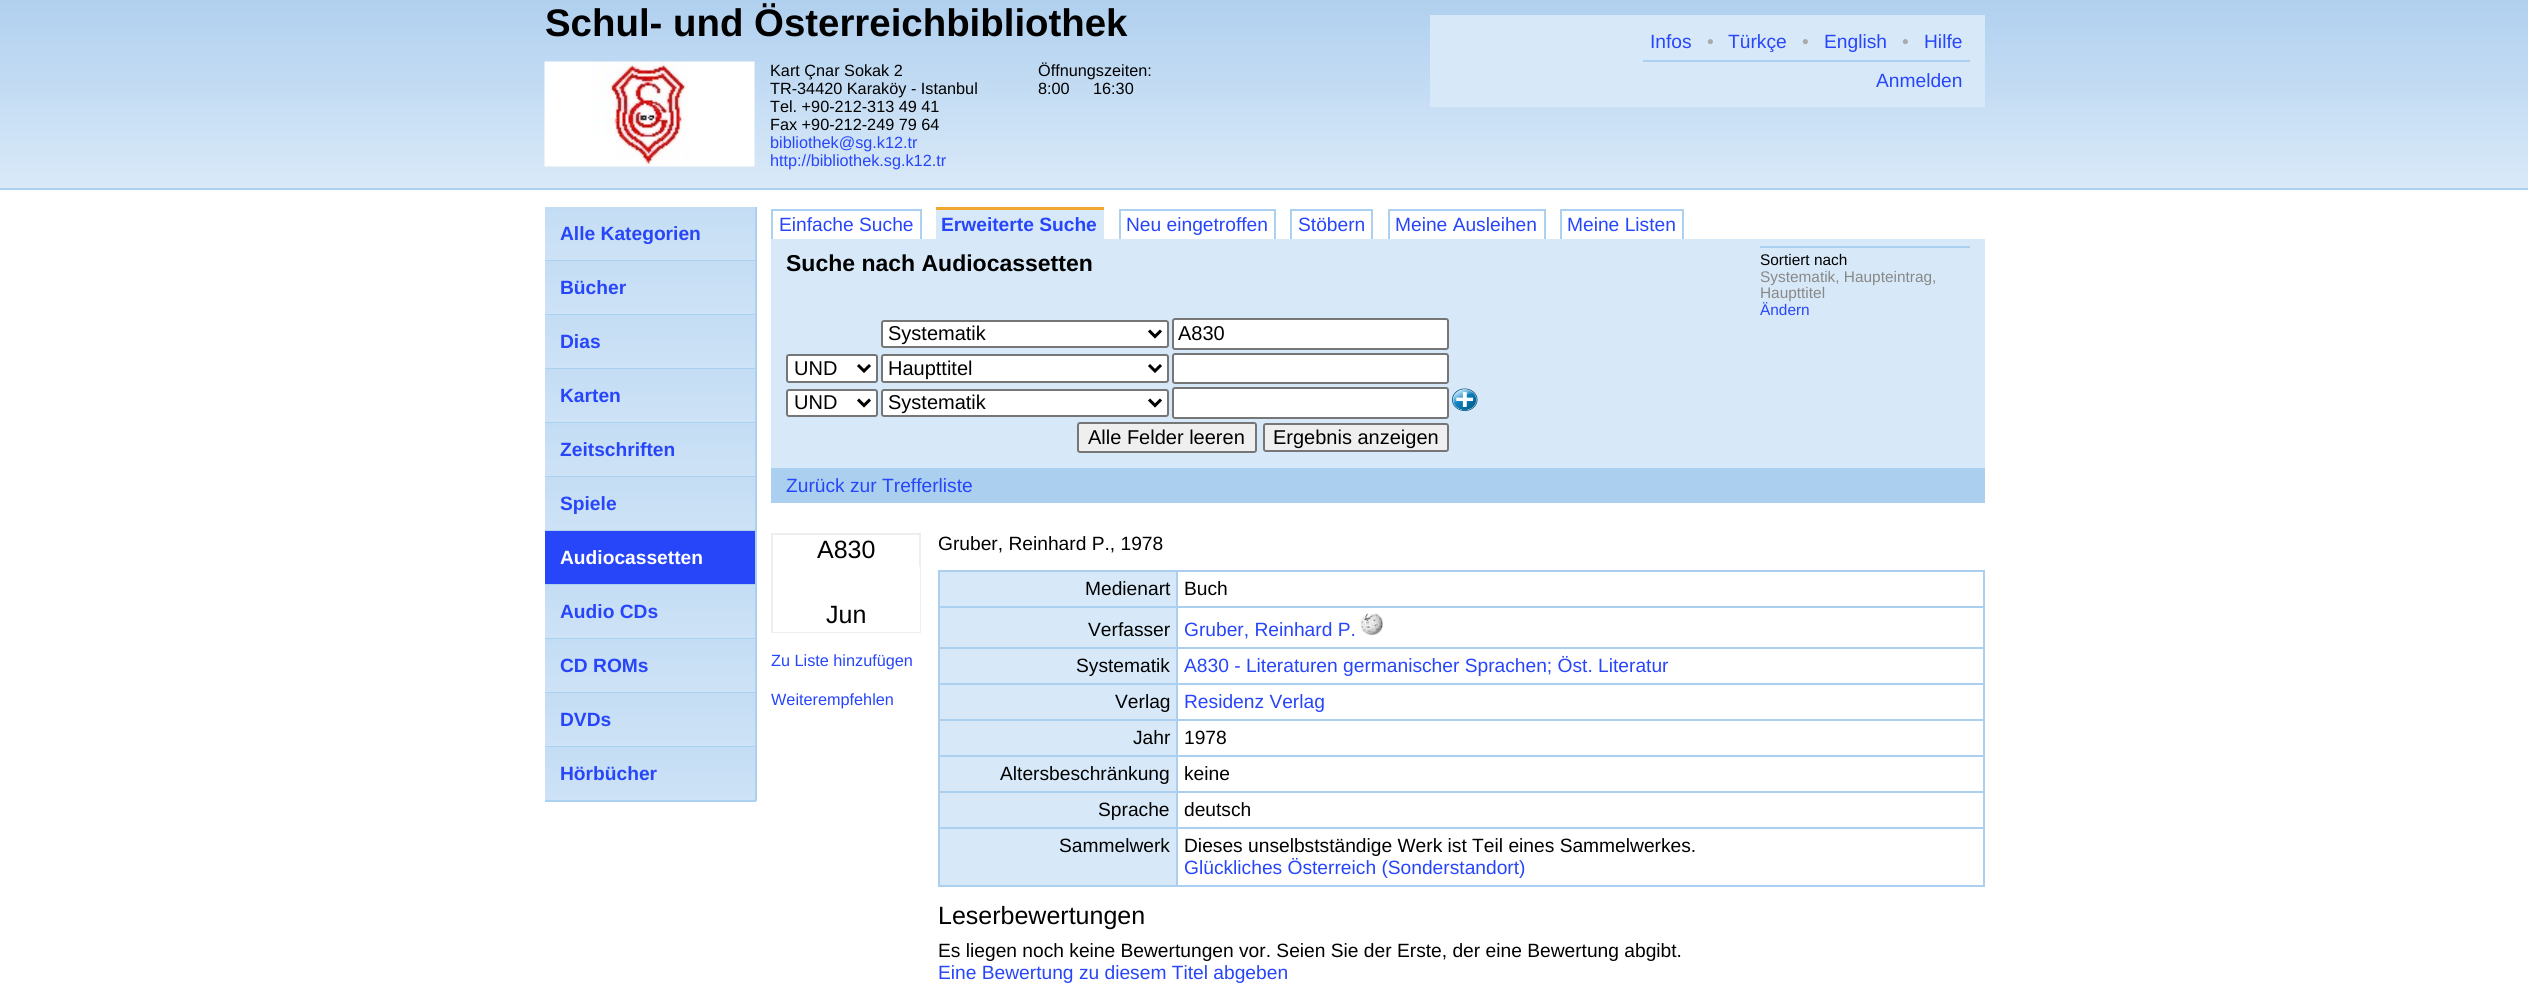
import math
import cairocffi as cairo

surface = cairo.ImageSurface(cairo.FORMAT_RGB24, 2528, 983)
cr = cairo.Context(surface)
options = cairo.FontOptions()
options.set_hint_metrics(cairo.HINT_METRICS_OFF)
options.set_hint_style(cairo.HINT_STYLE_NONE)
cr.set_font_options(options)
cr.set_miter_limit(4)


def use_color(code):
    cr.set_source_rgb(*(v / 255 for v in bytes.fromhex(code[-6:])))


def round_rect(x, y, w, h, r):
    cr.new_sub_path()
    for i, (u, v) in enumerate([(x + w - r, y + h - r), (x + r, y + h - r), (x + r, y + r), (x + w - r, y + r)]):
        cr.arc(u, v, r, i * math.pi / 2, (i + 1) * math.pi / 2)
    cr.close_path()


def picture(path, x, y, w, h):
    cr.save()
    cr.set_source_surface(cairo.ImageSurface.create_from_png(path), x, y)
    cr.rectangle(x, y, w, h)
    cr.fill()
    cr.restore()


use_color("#ffffff")
cr.paint()
gradient = cairo.LinearGradient(1265, 0, 1265, 188)
gradient.add_color_stop_rgba(0, 0.69, 0.816, 0.937, 1)
gradient.add_color_stop_rgba(1, 0.851, 0.914, 0.973, 1)
cr.set_source(gradient)
cr.rectangle(0, 0, 2528, 188)
cr.fill()
use_color("#acd0ef")
cr.rectangle(0, 188, 2528, 2)
cr.fill()
cr.select_font_face("Liberation Sans", cairo.FONT_SLANT_NORMAL, cairo.FONT_WEIGHT_BOLD)
cr.set_font_size(38.4)
use_color("#000000")
cr.move_to(545, 36)
cr.show_text("Schul- und Österreichbibliothek")
picture("img1.png", 544, 61, 211, 106)
cr.select_font_face("Liberation Sans")
cr.set_font_size(16.25)
cr.move_to(770, 76)
cr.show_text("Kart Çnar Sokak 2")
cr.move_to(770, 94)
cr.show_text("TR-34420 Karaköy - Istanbul")
cr.move_to(770, 112)
cr.show_text("Tel. +90-212-313 49 41")
cr.move_to(770, 130)
cr.show_text("Fax +90-212-249 79 64")
use_color("#2745f9")
cr.move_to(770, 148)
cr.show_text("bibliothek@sg.k12.tr")
cr.move_to(770, 166)
cr.show_text("http://bibliothek.sg.k12.tr")
use_color("#000000")
cr.move_to(1038, 76)
cr.show_text("Öffnungszeiten:")
cr.move_to(1038, 94)
cr.show_text("8:00")
cr.move_to(1093, 94)
cr.show_text("16:30")
use_color("#d7e9f8")
cr.rectangle(1430, 15, 555, 92)
cr.fill()
cr.set_font_size(19.2)
use_color("#2745f9")
cr.move_to(1650, 48)
cr.show_text("Infos")
use_color("#aaaaaa")
cr.move_to(1707, 48)
cr.show_text("•")
use_color("#2745f9")
cr.move_to(1728, 48)
cr.show_text("Türkçe")
use_color("#aaaaaa")
cr.move_to(1802, 48)
cr.show_text("•")
use_color("#2745f9")
cr.move_to(1824, 48)
cr.show_text("English")
use_color("#aaaaaa")
cr.move_to(1902, 48)
cr.show_text("•")
use_color("#acd0ef")
cr.rectangle(1643, 60, 327, 2)
cr.fill()
use_color("#2745f9")
cr.move_to(1924, 48)
cr.show_text("Hilfe")
cr.move_to(1876, 87)
cr.show_text("Anmelden")
gradient = cairo.LinearGradient(650, 207, 650, 260)
gradient.add_color_stop_rgba(0, 0.765, 0.867, 0.957, 1)
gradient.add_color_stop_rgba(1, 0.808, 0.886, 0.965, 1)
cr.set_source(gradient)
cr.rectangle(545, 207, 210, 53)
cr.fill()
use_color("#acd0ef")
cr.rectangle(755, 207, 2, 594)
cr.fill()
cr.rectangle(545, 260, 211, 1)
cr.fill()
cr.select_font_face("Liberation Sans", cairo.FONT_SLANT_NORMAL, cairo.FONT_WEIGHT_BOLD)
use_color("#2745f9")
cr.move_to(560, 240)
cr.show_text("Alle Kategorien")
gradient = cairo.LinearGradient(650, 261, 650, 314)
gradient.add_color_stop_rgba(0, 0.765, 0.867, 0.957, 1)
gradient.add_color_stop_rgba(1, 0.808, 0.886, 0.965, 1)
cr.set_source(gradient)
cr.rectangle(545, 261, 210, 53)
cr.fill()
use_color("#acd0ef")
cr.rectangle(545, 314, 211, 1)
cr.fill()
use_color("#2745f9")
cr.move_to(560, 294)
cr.show_text("Bücher")
gradient = cairo.LinearGradient(650, 315, 650, 368)
gradient.add_color_stop_rgba(0, 0.765, 0.867, 0.957, 1)
gradient.add_color_stop_rgba(1, 0.808, 0.886, 0.965, 1)
cr.set_source(gradient)
cr.rectangle(545, 315, 210, 53)
cr.fill()
use_color("#acd0ef")
cr.rectangle(545, 368, 211, 1)
cr.fill()
use_color("#2745f9")
cr.move_to(560, 348)
cr.show_text("Dias")
gradient = cairo.LinearGradient(650, 369, 650, 422)
gradient.add_color_stop_rgba(0, 0.765, 0.867, 0.957, 1)
gradient.add_color_stop_rgba(1, 0.808, 0.886, 0.965, 1)
cr.set_source(gradient)
cr.rectangle(545, 369, 210, 53)
cr.fill()
use_color("#acd0ef")
cr.rectangle(545, 422, 211, 1)
cr.fill()
use_color("#2745f9")
cr.move_to(560, 402)
cr.show_text("Karten")
gradient = cairo.LinearGradient(650, 423, 650, 476)
gradient.add_color_stop_rgba(0, 0.765, 0.867, 0.957, 1)
gradient.add_color_stop_rgba(1, 0.808, 0.886, 0.965, 1)
cr.set_source(gradient)
cr.rectangle(545, 423, 210, 53)
cr.fill()
use_color("#acd0ef")
cr.rectangle(545, 476, 211, 1)
cr.fill()
use_color("#2745f9")
cr.move_to(560, 456)
cr.show_text("Zeitschriften")
gradient = cairo.LinearGradient(650, 477, 650, 530)
gradient.add_color_stop_rgba(0, 0.765, 0.867, 0.957, 1)
gradient.add_color_stop_rgba(1, 0.808, 0.886, 0.965, 1)
cr.set_source(gradient)
cr.rectangle(545, 477, 210, 53)
cr.fill()
use_color("#acd0ef")
cr.rectangle(545, 530, 211, 1)
cr.fill()
use_color("#2745f9")
cr.move_to(560, 510)
cr.show_text("Spiele")
cr.rectangle(545, 531, 210, 53)
cr.fill()
use_color("#acd0ef")
cr.rectangle(545, 584, 211, 1)
cr.fill()
use_color("#ffffff")
cr.move_to(560, 564)
cr.show_text("Audiocassetten")
gradient = cairo.LinearGradient(650, 585, 650, 638)
gradient.add_color_stop_rgba(0, 0.765, 0.867, 0.957, 1)
gradient.add_color_stop_rgba(1, 0.808, 0.886, 0.965, 1)
cr.set_source(gradient)
cr.rectangle(545, 585, 210, 53)
cr.fill()
use_color("#acd0ef")
cr.rectangle(545, 638, 211, 1)
cr.fill()
use_color("#2745f9")
cr.move_to(560, 618)
cr.show_text("Audio CDs")
gradient = cairo.LinearGradient(650, 639, 650, 692)
gradient.add_color_stop_rgba(0, 0.765, 0.867, 0.957, 1)
gradient.add_color_stop_rgba(1, 0.808, 0.886, 0.965, 1)
cr.set_source(gradient)
cr.rectangle(545, 639, 210, 53)
cr.fill()
use_color("#acd0ef")
cr.rectangle(545, 692, 211, 1)
cr.fill()
use_color("#2745f9")
cr.move_to(560, 672)
cr.show_text("CD ROMs")
gradient = cairo.LinearGradient(650, 693, 650, 746)
gradient.add_color_stop_rgba(0, 0.765, 0.867, 0.957, 1)
gradient.add_color_stop_rgba(1, 0.808, 0.886, 0.965, 1)
cr.set_source(gradient)
cr.rectangle(545, 693, 210, 53)
cr.fill()
use_color("#acd0ef")
cr.rectangle(545, 746, 211, 1)
cr.fill()
use_color("#2745f9")
cr.move_to(560, 726)
cr.show_text("DVDs")
gradient = cairo.LinearGradient(650, 747, 650, 800)
gradient.add_color_stop_rgba(0, 0.765, 0.867, 0.957, 1)
gradient.add_color_stop_rgba(1, 0.808, 0.886, 0.965, 1)
cr.set_source(gradient)
cr.rectangle(545, 747, 210, 53)
cr.fill()
use_color("#acd0ef")
cr.rectangle(545, 800, 211, 2)
cr.fill()
use_color("#2745f9")
cr.move_to(560, 780)
cr.show_text("Hörbücher")
use_color("#acd0ef")
cr.rectangle(771, 209, 150, 2)
cr.fill()
cr.rectangle(920, 209, 2, 30)
cr.fill()
cr.rectangle(771, 209, 2, 30)
cr.fill()
cr.select_font_face("Liberation Sans")
use_color("#2745f9")
cr.move_to(779, 231)
cr.show_text("Einfache Suche")
use_color("#d7e9f8")
cr.rectangle(936, 210, 168, 29)
cr.fill()
use_color("#f1a630")
cr.rectangle(936, 207, 168, 3)
cr.fill()
cr.select_font_face("Liberation Sans", cairo.FONT_SLANT_NORMAL, cairo.FONT_WEIGHT_BOLD)
use_color("#2745f9")
cr.move_to(941, 231)
cr.show_text("Erweiterte Suche")
use_color("#acd0ef")
cr.rectangle(1119, 209, 156, 2)
cr.fill()
cr.rectangle(1274, 209, 2, 30)
cr.fill()
cr.rectangle(1119, 209, 2, 30)
cr.fill()
cr.select_font_face("Liberation Sans")
use_color("#2745f9")
cr.move_to(1126, 231)
cr.show_text("Neu eingetroffen")
use_color("#acd0ef")
cr.rectangle(1290, 209, 83, 2)
cr.fill()
cr.rectangle(1371, 209, 2, 30)
cr.fill()
cr.rectangle(1290, 209, 2, 30)
cr.fill()
use_color("#2745f9")
cr.move_to(1298, 231)
cr.show_text("Stöbern")
use_color("#acd0ef")
cr.rectangle(1388, 209, 157, 2)
cr.fill()
cr.rectangle(1544, 209, 2, 30)
cr.fill()
cr.rectangle(1388, 209, 2, 30)
cr.fill()
use_color("#2745f9")
cr.move_to(1395, 231)
cr.show_text("Meine Ausleihen")
use_color("#acd0ef")
cr.rectangle(1560, 209, 123, 2)
cr.fill()
cr.rectangle(1682, 209, 2, 30)
cr.fill()
cr.rectangle(1560, 209, 2, 30)
cr.fill()
use_color("#2745f9")
cr.move_to(1567, 231)
cr.show_text("Meine Listen")
use_color("#d7e9f8")
cr.rectangle(771, 239, 1214, 229)
cr.fill()
use_color("#abd0ef")
cr.rectangle(1760, 246, 210, 2)
cr.fill()
cr.set_font_size(15.4)
use_color("#000000")
cr.move_to(1760, 265)
cr.show_text("Sortiert nach")
use_color("#888888")
cr.move_to(1760, 282)
cr.show_text("Systematik, Haupteintrag,")
cr.move_to(1760, 298)
cr.show_text("Haupttitel")
use_color("#2745f9")
cr.move_to(1760, 315)
cr.show_text("Ändern")
use_color("#ffffff")
round_rect(882, 321, 286, 26, 2)
cr.fill_preserve()
use_color("#767676")
cr.stroke()
cr.new_path()
cr.move_to(1149, 330.5)
cr.line_to(1155, 336.5)
cr.line_to(1161, 330.5)
use_color("#000000")
cr.set_line_width(3)
cr.stroke()
cr.set_font_size(20)
cr.move_to(888, 340)
cr.show_text("Systematik")
use_color("#ffffff")
round_rect(1173, 319, 275, 30, 2)
cr.fill_preserve()
use_color("#767676")
cr.set_line_width(2)
cr.stroke()
use_color("#000000")
cr.move_to(1178, 340)
cr.show_text("A830")
use_color("#ffffff")
round_rect(787, 355, 90, 27, 2)
cr.fill_preserve()
use_color("#767676")
cr.stroke()
cr.new_path()
cr.move_to(858, 365)
cr.line_to(864, 371)
cr.line_to(870, 365)
use_color("#000000")
cr.set_line_width(3)
cr.stroke()
cr.move_to(794, 375)
cr.show_text("UND")
use_color("#ffffff")
round_rect(882, 355, 286, 27, 2)
cr.fill_preserve()
use_color("#767676")
cr.set_line_width(2)
cr.stroke()
cr.new_path()
cr.move_to(1149, 365)
cr.line_to(1155, 371)
cr.line_to(1161, 365)
use_color("#000000")
cr.set_line_width(3)
cr.stroke()
cr.move_to(888, 375)
cr.show_text("Haupttitel")
use_color("#ffffff")
round_rect(1173, 354, 275, 29, 2)
cr.fill_preserve()
use_color("#767676")
cr.set_line_width(2)
cr.stroke()
use_color("#ffffff")
round_rect(787, 390, 90, 26, 2)
cr.fill_preserve()
use_color("#767676")
cr.stroke()
cr.new_path()
cr.move_to(858, 399.5)
cr.line_to(864, 405.5)
cr.line_to(870, 399.5)
use_color("#000000")
cr.set_line_width(3)
cr.stroke()
cr.move_to(794, 409)
cr.show_text("UND")
use_color("#ffffff")
round_rect(882, 390, 286, 26, 2)
cr.fill_preserve()
use_color("#767676")
cr.set_line_width(2)
cr.stroke()
cr.new_path()
cr.move_to(1149, 399.5)
cr.line_to(1155, 405.5)
cr.line_to(1161, 399.5)
use_color("#000000")
cr.set_line_width(3)
cr.stroke()
cr.move_to(888, 409)
cr.show_text("Systematik")
use_color("#ffffff")
round_rect(1173, 388, 275, 30, 2)
cr.fill_preserve()
use_color("#767676")
cr.set_line_width(2)
cr.stroke()
picture("img2.png", 1452, 388, 26, 23)
use_color("#efefef")
round_rect(1078, 423, 178, 29, 2)
cr.fill_preserve()
use_color("#767676")
cr.stroke()
use_color("#000000")
cr.move_to(1088, 444)
cr.show_text("Alle Felder leeren")
use_color("#efefef")
round_rect(1264, 424, 184, 27, 2)
cr.fill_preserve()
use_color("#767676")
cr.stroke()
use_color("#000000")
cr.move_to(1273, 444)
cr.show_text("Ergebnis anzeigen")
cr.select_font_face("Liberation Sans", cairo.FONT_SLANT_NORMAL, cairo.FONT_WEIGHT_BOLD)
cr.set_font_size(23)
cr.move_to(786, 271)
cr.show_text("Suche nach Audiocassetten")
use_color("#abd0ef")
cr.rectangle(771, 468, 1214, 35)
cr.fill()
cr.select_font_face("Liberation Sans")
cr.set_font_size(19.2)
use_color("#2745f9")
cr.move_to(786, 492)
cr.show_text("Zurück zur Trefferliste")
cr.rectangle(772, 534, 148, 98)
use_color("#eeeeee")
cr.stroke()
cr.set_font_size(25)
use_color("#000000")
cr.move_to(817, 558)
cr.show_text("A830")
use_color("#ffffff")
cr.rectangle(919, 567, 1, 32)
cr.fill()
cr.rectangle(773, 599, 147, 33)
cr.fill()
use_color("#000000")
cr.move_to(826, 623)
cr.show_text("Jun")
cr.set_font_size(16.25)
use_color("#2745f9")
cr.move_to(771, 666)
cr.show_text("Zu Liste hinzufügen")
cr.move_to(771, 705)
cr.show_text("Weiterempfehlen")
cr.set_font_size(19.2)
use_color("#000000")
cr.move_to(938, 550)
cr.show_text("Gruber, Reinhard P., 1978")
use_color("#d7e9f8")
cr.rectangle(940, 572, 236, 34)
cr.fill()
use_color("#abd0ef")
cr.rectangle(1176, 570, 809, 2)
cr.fill()
cr.rectangle(1176, 606, 809, 2)
cr.fill()
cr.rectangle(1176, 647, 809, 2)
cr.fill()
cr.rectangle(1176, 683, 809, 2)
cr.fill()
cr.rectangle(1176, 719, 809, 2)
cr.fill()
cr.rectangle(1176, 755, 809, 2)
cr.fill()
cr.rectangle(1176, 791, 809, 2)
cr.fill()
cr.rectangle(1176, 827, 809, 2)
cr.fill()
cr.rectangle(1983, 827, 2, 60)
cr.fill()
cr.rectangle(1176, 885, 809, 2)
cr.fill()
cr.rectangle(1176, 827, 2, 60)
cr.fill()
cr.rectangle(938, 827, 240, 2)
cr.fill()
cr.rectangle(1176, 791, 2, 37)
cr.fill()
cr.rectangle(938, 791, 240, 2)
cr.fill()
cr.rectangle(1176, 755, 2, 37)
cr.fill()
cr.rectangle(938, 755, 240, 2)
cr.fill()
cr.rectangle(1176, 719, 2, 37)
cr.fill()
cr.rectangle(938, 719, 240, 2)
cr.fill()
cr.rectangle(1176, 683, 2, 37)
cr.fill()
cr.rectangle(938, 683, 240, 2)
cr.fill()
cr.rectangle(1176, 647, 2, 37)
cr.fill()
cr.rectangle(938, 647, 240, 2)
cr.fill()
cr.rectangle(1176, 606, 2, 42)
cr.fill()
cr.rectangle(938, 606, 240, 2)
cr.fill()
cr.rectangle(1176, 570, 2, 38)
cr.fill()
cr.rectangle(938, 570, 240, 2)
cr.fill()
cr.rectangle(938, 885, 240, 2)
cr.fill()
cr.rectangle(938, 827, 2, 60)
cr.fill()
cr.rectangle(938, 791, 2, 37)
cr.fill()
cr.rectangle(938, 755, 2, 37)
cr.fill()
cr.rectangle(938, 719, 2, 37)
cr.fill()
cr.rectangle(938, 683, 2, 37)
cr.fill()
cr.rectangle(938, 647, 2, 37)
cr.fill()
cr.rectangle(938, 606, 2, 42)
cr.fill()
cr.rectangle(938, 570, 2, 38)
cr.fill()
use_color("#000000")
cr.move_to(1085, 595)
cr.show_text("Medienart")
use_color("#abd0ef")
cr.rectangle(1983, 791, 2, 37)
cr.fill()
cr.rectangle(1983, 755, 2, 37)
cr.fill()
cr.rectangle(1983, 719, 2, 37)
cr.fill()
cr.rectangle(1983, 683, 2, 37)
cr.fill()
cr.rectangle(1983, 647, 2, 37)
cr.fill()
cr.rectangle(1983, 606, 2, 42)
cr.fill()
cr.rectangle(1983, 570, 2, 38)
cr.fill()
use_color("#000000")
cr.move_to(1184, 595)
cr.show_text("Buch")
use_color("#d7e9f8")
cr.rectangle(940, 608, 236, 39)
cr.fill()
use_color("#000000")
cr.move_to(1088, 636)
cr.show_text("Verfasser")
use_color("#2745f9")
cr.move_to(1184, 636)
cr.show_text("Gruber, Reinhard P.")
picture("img3.png", 1360, 613, 23, 23)
use_color("#d7e9f8")
cr.rectangle(940, 649, 236, 34)
cr.fill()
use_color("#000000")
cr.move_to(1076, 672)
cr.show_text("Systematik")
use_color("#2745f9")
cr.move_to(1184, 672)
cr.show_text("A830 - Literaturen germanischer Sprachen; Öst. Literatur")
use_color("#d7e9f8")
cr.rectangle(940, 685, 236, 34)
cr.fill()
use_color("#000000")
cr.move_to(1115, 708)
cr.show_text("Verlag")
use_color("#2745f9")
cr.move_to(1184, 708)
cr.show_text("Residenz Verlag")
use_color("#d7e9f8")
cr.rectangle(940, 721, 236, 34)
cr.fill()
use_color("#000000")
cr.move_to(1133, 744)
cr.show_text("Jahr")
cr.move_to(1184, 744)
cr.show_text("1978")
use_color("#d7e9f8")
cr.rectangle(940, 757, 236, 34)
cr.fill()
use_color("#000000")
cr.move_to(1000, 780)
cr.show_text("Altersbeschränkung")
cr.move_to(1184, 780)
cr.show_text("keine")
use_color("#d7e9f8")
cr.rectangle(940, 793, 236, 34)
cr.fill()
use_color("#000000")
cr.move_to(1098, 816)
cr.show_text("Sprache")
cr.move_to(1184, 816)
cr.show_text("deutsch")
use_color("#d7e9f8")
cr.rectangle(940, 829, 236, 56)
cr.fill()
use_color("#000000")
cr.move_to(1059, 852)
cr.show_text("Sammelwerk")
cr.move_to(1184, 852)
cr.show_text("Dieses unselbstständige Werk ist Teil eines Sammelwerkes.")
use_color("#2745f9")
cr.move_to(1184, 874)
cr.show_text("Glückliches Österreich (Sonderstandort)")
cr.set_font_size(25)
use_color("#000000")
cr.move_to(938, 924)
cr.show_text("Leserbewertungen")
cr.set_font_size(19.2)
cr.move_to(938, 957)
cr.show_text("Es liegen noch keine Bewertungen vor. Seien Sie der Erste, der eine Bewertung abgibt.")
use_color("#2745f9")
cr.move_to(938, 979)
cr.show_text("Eine Bewertung zu diesem Titel abgeben")
surface.write_to_png("result.png")
